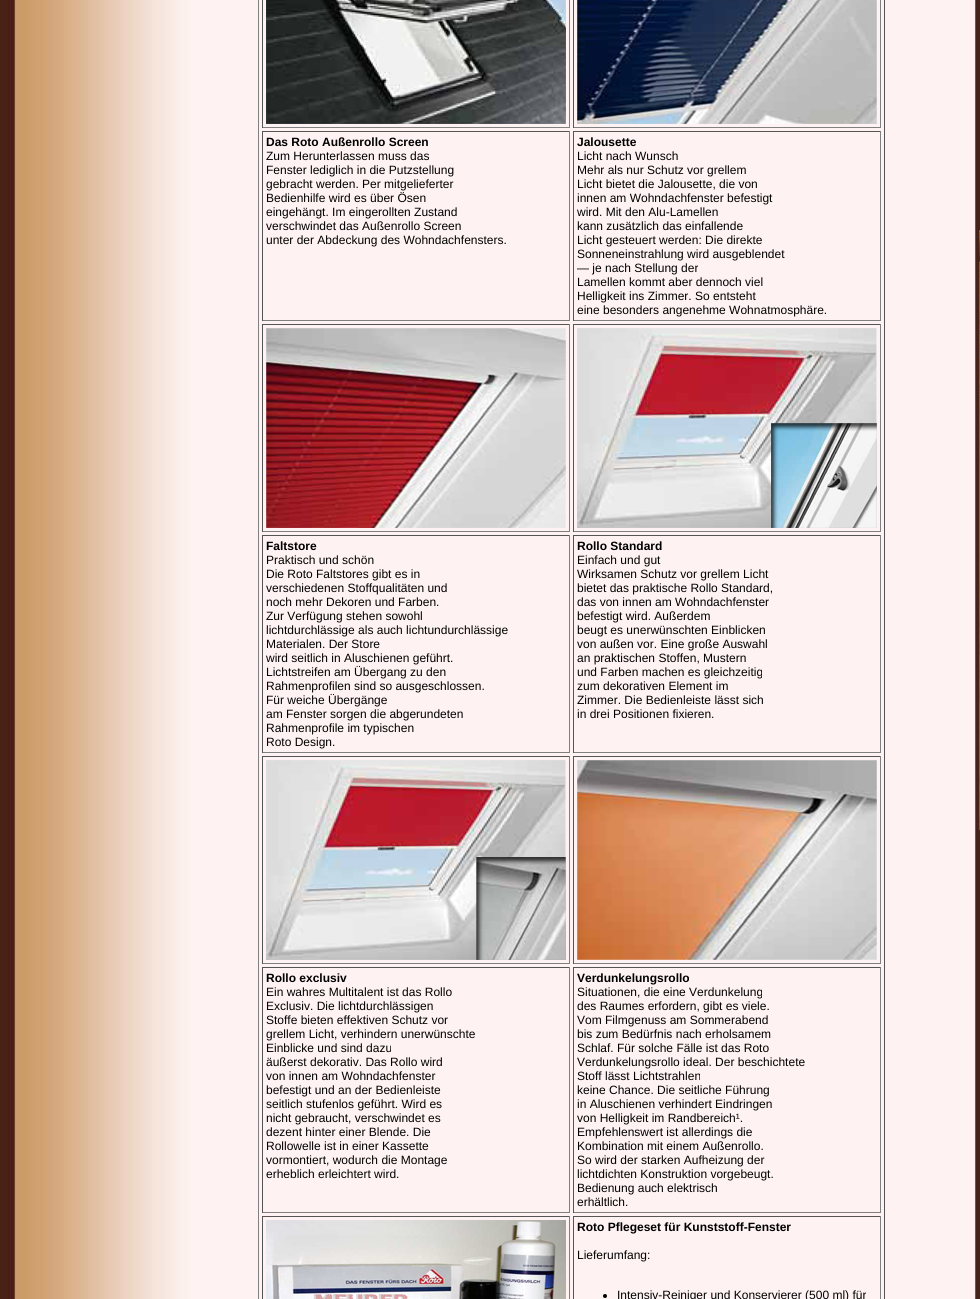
import math
import cairocffi as cairo

surface = cairo.ImageSurface(cairo.FORMAT_RGB24, 980, 1299)
cr = cairo.Context(surface)
options = cairo.FontOptions()
options.set_hint_metrics(cairo.HINT_METRICS_OFF)
options.set_hint_style(cairo.HINT_STYLE_NONE)
cr.set_font_options(options)
cr.set_miter_limit(4)


def use_color(code):
    cr.set_source_rgb(*(v / 255 for v in bytes.fromhex(code[-6:])))


def picture(path, x, y, w, h):
    cr.save()
    cr.set_source_surface(cairo.ImageSurface.create_from_png(path), x, y)
    cr.rectangle(x, y, w, h)
    cr.fill()
    cr.restore()


use_color("#ffffff")
cr.paint()
picture("img1.png", 0, 0, 980, 1299)
use_color("#555555")
cr.rectangle(884, 0, 1, 1299)
cr.fill()
use_color("#808080")
cr.rectangle(258, 0, 1, 1299)
cr.fill()
cr.rectangle(569, 0, 1, 128)
cr.fill()
cr.rectangle(262, 127, 308, 1)
cr.fill()
use_color("#555555")
cr.rectangle(262, 0, 1, 128)
cr.fill()
picture("img2.png", 266, 0, 300, 124)
use_color("#808080")
cr.rectangle(880, 0, 1, 128)
cr.fill()
cr.rectangle(573, 127, 308, 1)
cr.fill()
use_color("#555555")
cr.rectangle(573, 0, 1, 128)
cr.fill()
picture("img3.png", 577, 0, 300, 124)
cr.rectangle(262, 131, 308, 1)
cr.fill()
use_color("#808080")
cr.rectangle(569, 131, 1, 190)
cr.fill()
cr.rectangle(262, 320, 308, 1)
cr.fill()
use_color("#555555")
cr.rectangle(262, 131, 1, 190)
cr.fill()
cr.select_font_face("Liberation Sans", cairo.FONT_SLANT_NORMAL, cairo.FONT_WEIGHT_BOLD)
cr.set_font_size(12)
use_color("#000000")
cr.move_to(266, 146)
cr.show_text("Das Roto Außenrollo Screen")
cr.select_font_face("Liberation Sans")
cr.move_to(266, 160)
cr.show_text("Zum Herunterlassen muss das")
cr.move_to(266, 174)
cr.show_text("Fenster lediglich in die Putzstellung")
cr.move_to(266, 188)
cr.show_text("gebracht werden. Per mitgelieferter")
cr.move_to(266, 202)
cr.show_text("Bedienhilfe wird es über Ösen")
cr.move_to(266, 216)
cr.show_text("eingehängt. Im eingerollten Zustand")
cr.move_to(266, 230)
cr.show_text("verschwindet das Außenrollo Screen")
cr.move_to(266, 244)
cr.show_text("unter der Abdeckung des Wohndachfensters.")
use_color("#555555")
cr.rectangle(573, 131, 308, 1)
cr.fill()
use_color("#808080")
cr.rectangle(880, 131, 1, 190)
cr.fill()
cr.rectangle(573, 320, 308, 1)
cr.fill()
use_color("#555555")
cr.rectangle(573, 131, 1, 190)
cr.fill()
cr.select_font_face("Liberation Sans", cairo.FONT_SLANT_NORMAL, cairo.FONT_WEIGHT_BOLD)
use_color("#000000")
cr.move_to(577, 146)
cr.show_text("Jalousette")
cr.select_font_face("Liberation Sans")
cr.move_to(577, 160)
cr.show_text("Licht nach Wunsch")
cr.move_to(577, 174)
cr.show_text("Mehr als nur Schutz vor grellem")
cr.move_to(577, 188)
cr.show_text("Licht bietet die Jalousette, die von")
cr.move_to(577, 202)
cr.show_text("innen am Wohndachfenster befestigt")
cr.move_to(577, 216)
cr.show_text("wird. Mit den Alu-Lamellen")
cr.move_to(577, 230)
cr.show_text("kann zusätzlich das einfallende")
cr.move_to(577, 244)
cr.show_text("Licht gesteuert werden: Die direkte")
cr.move_to(577, 258)
cr.show_text("Sonneneinstrahlung wird ausgeblendet")
cr.move_to(577, 272)
cr.show_text("— je nach Stellung der")
cr.move_to(577, 286)
cr.show_text("Lamellen kommt aber dennoch viel")
cr.move_to(577, 300)
cr.show_text("Helligkeit ins Zimmer. So entsteht")
cr.move_to(577, 314)
cr.show_text("eine besonders angenehme Wohnatmosphäre.")
use_color("#555555")
cr.rectangle(262, 324, 308, 1)
cr.fill()
use_color("#808080")
cr.rectangle(569, 324, 1, 208)
cr.fill()
cr.rectangle(262, 531, 308, 1)
cr.fill()
use_color("#555555")
cr.rectangle(262, 324, 1, 208)
cr.fill()
picture("img4.png", 266, 328, 300, 200)
cr.rectangle(573, 324, 308, 1)
cr.fill()
use_color("#808080")
cr.rectangle(880, 324, 1, 208)
cr.fill()
cr.rectangle(573, 531, 308, 1)
cr.fill()
use_color("#555555")
cr.rectangle(573, 324, 1, 208)
cr.fill()
picture("img5.png", 577, 328, 300, 200)
cr.rectangle(262, 535, 308, 1)
cr.fill()
use_color("#808080")
cr.rectangle(569, 535, 1, 218)
cr.fill()
cr.rectangle(262, 752, 308, 1)
cr.fill()
use_color("#555555")
cr.rectangle(262, 535, 1, 218)
cr.fill()
cr.select_font_face("Liberation Sans", cairo.FONT_SLANT_NORMAL, cairo.FONT_WEIGHT_BOLD)
use_color("#000000")
cr.move_to(266, 550)
cr.show_text("Faltstore")
cr.select_font_face("Liberation Sans")
cr.move_to(266, 564)
cr.show_text("Praktisch und schön")
cr.move_to(266, 578)
cr.show_text("Die Roto Faltstores gibt es in")
cr.move_to(266, 592)
cr.show_text("verschiedenen Stoffqualitäten und")
cr.move_to(266, 606)
cr.show_text("noch mehr Dekoren und Farben.")
cr.move_to(266, 620)
cr.show_text("Zur Verfügung stehen sowohl")
cr.move_to(266, 634)
cr.show_text("lichtdurchlässige als auch lichtundurchlässige")
cr.move_to(266, 648)
cr.show_text("Materialen. Der Store")
cr.move_to(266, 662)
cr.show_text("wird seitlich in Aluschienen geführt.")
cr.move_to(266, 676)
cr.show_text("Lichtstreifen am Übergang zu den")
cr.move_to(266, 690)
cr.show_text("Rahmenprofilen sind so ausgeschlossen.")
cr.move_to(266, 704)
cr.show_text("Für weiche Übergänge")
cr.move_to(266, 718)
cr.show_text("am Fenster sorgen die abgerundeten")
cr.move_to(266, 732)
cr.show_text("Rahmenprofile im typischen")
cr.move_to(266, 746)
cr.show_text("Roto Design.")
use_color("#555555")
cr.rectangle(573, 535, 308, 1)
cr.fill()
use_color("#808080")
cr.rectangle(880, 535, 1, 218)
cr.fill()
cr.rectangle(573, 752, 308, 1)
cr.fill()
use_color("#555555")
cr.rectangle(573, 535, 1, 218)
cr.fill()
cr.select_font_face("Liberation Sans", cairo.FONT_SLANT_NORMAL, cairo.FONT_WEIGHT_BOLD)
use_color("#000000")
cr.move_to(577, 550)
cr.show_text("Rollo Standard")
cr.select_font_face("Liberation Sans")
cr.move_to(577, 564)
cr.show_text("Einfach und gut")
cr.move_to(577, 578)
cr.show_text("Wirksamen Schutz vor grellem Licht")
cr.move_to(577, 592)
cr.show_text("bietet das praktische Rollo Standard,")
cr.move_to(577, 606)
cr.show_text("das von innen am Wohndachfenster")
cr.move_to(577, 620)
cr.show_text("befestigt wird. Außerdem")
cr.move_to(577, 634)
cr.show_text("beugt es unerwünschten Einblicken")
cr.move_to(577, 648)
cr.show_text("von außen vor. Eine große Auswahl")
cr.move_to(577, 662)
cr.show_text("an praktischen Stoffen, Mustern")
cr.move_to(577, 676)
cr.show_text("und Farben machen es gleichzeitig")
cr.move_to(577, 690)
cr.show_text("zum dekorativen Element im")
cr.move_to(577, 704)
cr.show_text("Zimmer. Die Bedienleiste lässt sich")
cr.move_to(577, 718)
cr.show_text("in drei Positionen fixieren.")
use_color("#555555")
cr.rectangle(262, 756, 308, 1)
cr.fill()
use_color("#808080")
cr.rectangle(569, 756, 1, 208)
cr.fill()
cr.rectangle(262, 963, 308, 1)
cr.fill()
use_color("#555555")
cr.rectangle(262, 756, 1, 208)
cr.fill()
picture("img6.png", 266, 760, 300, 200)
cr.rectangle(573, 756, 308, 1)
cr.fill()
use_color("#808080")
cr.rectangle(880, 756, 1, 208)
cr.fill()
cr.rectangle(573, 963, 308, 1)
cr.fill()
use_color("#555555")
cr.rectangle(573, 756, 1, 208)
cr.fill()
picture("img7.png", 577, 760, 300, 200)
cr.rectangle(262, 967, 308, 1)
cr.fill()
use_color("#808080")
cr.rectangle(569, 967, 1, 246)
cr.fill()
cr.rectangle(262, 1212, 308, 1)
cr.fill()
use_color("#555555")
cr.rectangle(262, 967, 1, 246)
cr.fill()
cr.select_font_face("Liberation Sans", cairo.FONT_SLANT_NORMAL, cairo.FONT_WEIGHT_BOLD)
use_color("#000000")
cr.move_to(266, 982)
cr.show_text("Rollo exclusiv")
cr.select_font_face("Liberation Sans")
cr.move_to(266, 996)
cr.show_text("Ein wahres Multitalent ist das Rollo")
cr.move_to(266, 1010)
cr.show_text("Exclusiv. Die lichtdurchlässigen")
cr.move_to(266, 1024)
cr.show_text("Stoffe bieten effektiven Schutz vor")
cr.move_to(266, 1038)
cr.show_text("grellem Licht, verhindern unerwünschte")
cr.move_to(266, 1052)
cr.show_text("Einblicke und sind dazu")
cr.move_to(266, 1066)
cr.show_text("äußerst dekorativ. Das Rollo wird")
cr.move_to(266, 1080)
cr.show_text("von innen am Wohndachfenster")
cr.move_to(266, 1094)
cr.show_text("befestigt und an der Bedienleiste")
cr.move_to(266, 1108)
cr.show_text("seitlich stufenlos geführt. Wird es")
cr.move_to(266, 1122)
cr.show_text("nicht gebraucht, verschwindet es")
cr.move_to(266, 1136)
cr.show_text("dezent hinter einer Blende. Die")
cr.move_to(266, 1150)
cr.show_text("Rollowelle ist in einer Kassette")
cr.move_to(266, 1164)
cr.show_text("vormontiert, wodurch die Montage")
cr.move_to(266, 1178)
cr.show_text("erheblich erleichtert wird.")
use_color("#555555")
cr.rectangle(573, 967, 308, 1)
cr.fill()
use_color("#808080")
cr.rectangle(880, 967, 1, 246)
cr.fill()
cr.rectangle(573, 1212, 308, 1)
cr.fill()
use_color("#555555")
cr.rectangle(573, 967, 1, 246)
cr.fill()
cr.select_font_face("Liberation Sans", cairo.FONT_SLANT_NORMAL, cairo.FONT_WEIGHT_BOLD)
use_color("#000000")
cr.move_to(577, 982)
cr.show_text("Verdunkelungsrollo")
cr.select_font_face("Liberation Sans")
cr.move_to(577, 996)
cr.show_text("Situationen, die eine Verdunkelung")
cr.move_to(577, 1010)
cr.show_text("des Raumes erfordern, gibt es viele.")
cr.move_to(577, 1024)
cr.show_text("Vom Filmgenuss am Sommerabend")
cr.move_to(577, 1038)
cr.show_text("bis zum Bedürfnis nach erholsamem")
cr.move_to(577, 1052)
cr.show_text("Schlaf. Für solche Fälle ist das Roto")
cr.move_to(577, 1066)
cr.show_text("Verdunkelungsrollo ideal. Der beschichtete")
cr.move_to(577, 1080)
cr.show_text("Stoff lässt Lichtstrahlen")
cr.move_to(577, 1094)
cr.show_text("keine Chance. Die seitliche Führung")
cr.move_to(577, 1108)
cr.show_text("in Aluschienen verhindert Eindringen")
cr.move_to(577, 1122)
cr.show_text("von Helligkeit im Randbereich¹.")
cr.move_to(577, 1136)
cr.show_text("Empfehlenswert ist allerdings die")
cr.move_to(577, 1150)
cr.show_text("Kombination mit einem Außenrollo.")
cr.move_to(577, 1164)
cr.show_text("So wird der starken Aufheizung der")
cr.move_to(577, 1178)
cr.show_text("lichtdichten Konstruktion vorgebeugt.")
cr.move_to(577, 1192)
cr.show_text("Bedienung auch elektrisch")
cr.move_to(577, 1206)
cr.show_text("erhältlich.")
use_color("#555555")
cr.rectangle(262, 1216, 308, 1)
cr.fill()
use_color("#808080")
cr.rectangle(569, 1216, 1, 83)
cr.fill()
use_color("#555555")
cr.rectangle(262, 1216, 1, 83)
cr.fill()
picture("img8.png", 266, 1220, 300, 79)
cr.rectangle(573, 1216, 308, 1)
cr.fill()
use_color("#808080")
cr.rectangle(880, 1216, 1, 83)
cr.fill()
use_color("#555555")
cr.rectangle(573, 1216, 1, 83)
cr.fill()
cr.select_font_face("Liberation Sans", cairo.FONT_SLANT_NORMAL, cairo.FONT_WEIGHT_BOLD)
use_color("#000000")
cr.move_to(577, 1231)
cr.show_text("Roto Pflegeset für Kunststoff-Fenster")
cr.select_font_face("Liberation Sans")
cr.move_to(577, 1259)
cr.show_text("Lieferumfang:")
cr.new_path()
cr.arc(605, 1296, 2, 0, 2 * math.pi)
cr.fill()
cr.move_to(617, 1299)
cr.show_text("Intensiv-Reiniger und Konservierer (500 ml) für")
picture("img9.png", 979, 230, 1, 600)
surface.write_to_png("result.png")
